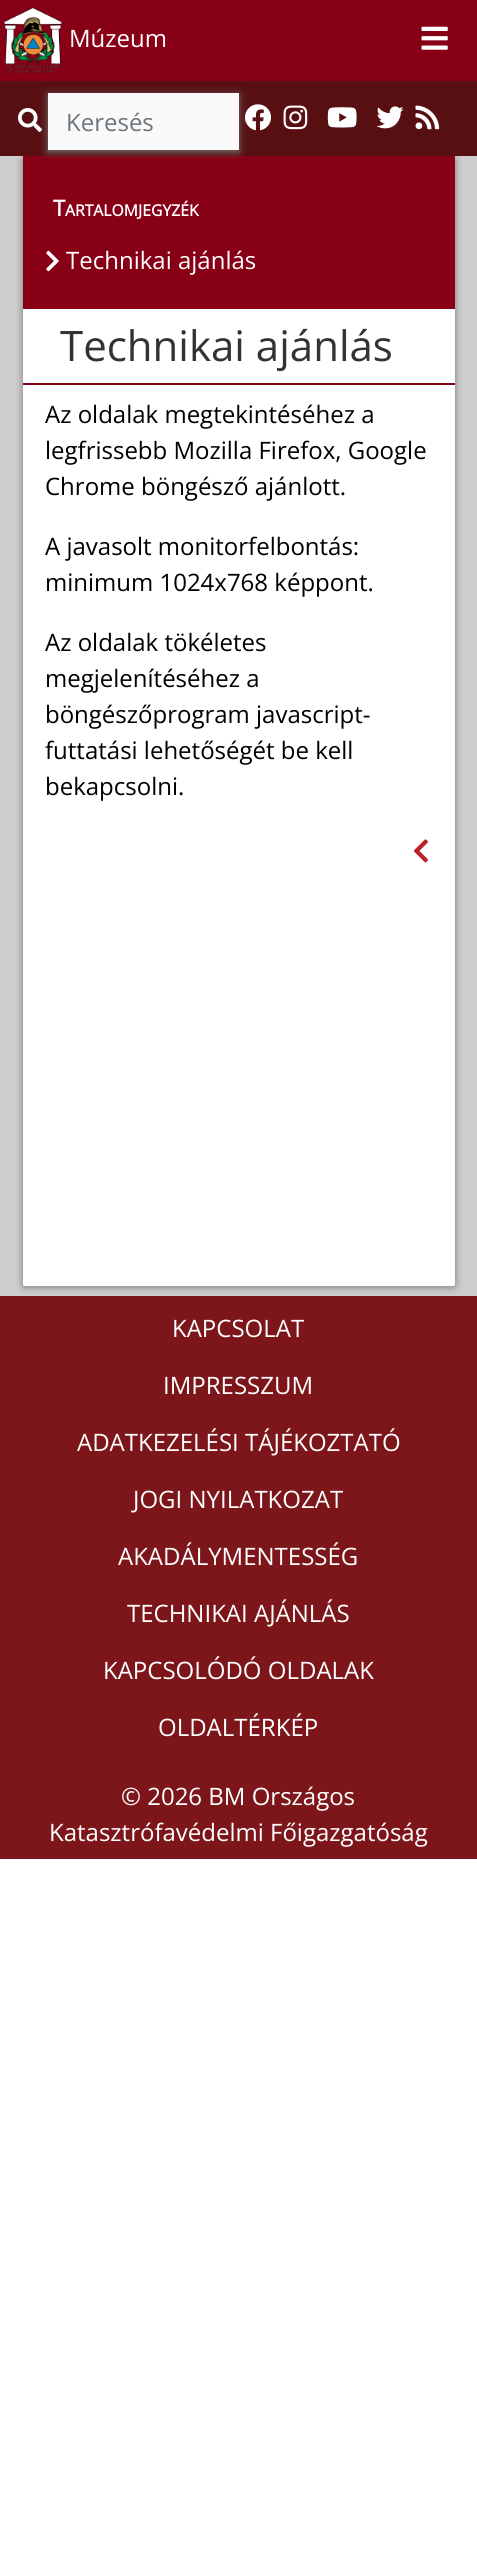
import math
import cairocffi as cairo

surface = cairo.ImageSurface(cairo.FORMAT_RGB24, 477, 2567)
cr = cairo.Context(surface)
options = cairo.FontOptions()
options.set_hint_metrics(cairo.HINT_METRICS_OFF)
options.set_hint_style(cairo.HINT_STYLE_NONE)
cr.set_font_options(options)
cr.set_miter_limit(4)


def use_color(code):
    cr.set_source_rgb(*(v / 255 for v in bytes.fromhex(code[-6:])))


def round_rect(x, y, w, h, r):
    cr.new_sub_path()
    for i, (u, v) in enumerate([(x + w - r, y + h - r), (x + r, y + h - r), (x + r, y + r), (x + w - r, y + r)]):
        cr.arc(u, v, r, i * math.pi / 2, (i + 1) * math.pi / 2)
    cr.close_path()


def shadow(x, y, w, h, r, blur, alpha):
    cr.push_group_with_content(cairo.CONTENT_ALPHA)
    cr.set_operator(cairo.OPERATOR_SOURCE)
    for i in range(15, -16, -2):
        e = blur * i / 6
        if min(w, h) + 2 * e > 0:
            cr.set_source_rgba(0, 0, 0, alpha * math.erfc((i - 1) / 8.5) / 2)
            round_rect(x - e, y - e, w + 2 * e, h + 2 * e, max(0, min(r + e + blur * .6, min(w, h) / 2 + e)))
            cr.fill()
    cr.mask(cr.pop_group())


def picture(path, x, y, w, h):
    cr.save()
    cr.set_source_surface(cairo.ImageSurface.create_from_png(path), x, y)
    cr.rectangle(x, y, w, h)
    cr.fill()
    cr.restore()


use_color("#ffffff")
cr.paint()
use_color("#880015")
cr.rectangle(0, 0, 477, 81)
cr.fill()
picture("img1.png", 3, 7, 60, 66)
cr.select_font_face("Open Sans")
cr.set_font_size(24)
use_color("#ffffff")
cr.move_to(69, 47)
cr.show_text("Múzeum")
picture("img2.png", 421, 26, 27, 24)
use_color("#cecece")
cr.rectangle(0, 156, 477, 1140)
cr.fill()
use_color("#7c161b")
cr.rectangle(0, 1296, 477, 563)
cr.fill()
use_color("#777777")
shadow(23, 159, 432, 1128, 1.5, 4, 1)
use_color("#570f12")
cr.rectangle(0, 81, 477, 75)
cr.fill()
picture("img3.png", 18, 108, 24, 24)
use_color("#ffffff")
round_rect(23, 158, 432, 1128, 1.5)
cr.fill()
use_color("#880015")
cr.rectangle(23, 156, 432, 153)
cr.fill()
use_color("#777777")
shadow(48, 95, 191, 57, 0, 4, 1)
use_color("#fafafa")
cr.rectangle(48, 93, 191, 57)
cr.fill()
use_color("#6c757d")
cr.move_to(66, 131)
cr.show_text("Keresés")
picture("img4.png", 244, 104, 28, 27)
picture("img5.png", 283, 105, 25, 25)
picture("img6.png", 327, 107, 30, 21)
picture("img7.png", 376, 106, 28, 23)
picture("img8.png", 415, 105, 25, 25)
cr.select_font_face("Open Sans", cairo.FONT_SLANT_NORMAL, cairo.FONT_WEIGHT_BOLD)
cr.set_font_size(22)
use_color("#ffffff")
cr.move_to(53, 216)
cr.show_text("T")
cr.set_font_size(15.75)
cr.move_to(65, 216)
cr.show_text("ARTALOMJEGYZÉK")
picture("img9.png", 46, 250, 13, 22)
cr.select_font_face("Open Sans")
cr.set_font_size(24)
cr.move_to(66, 269)
cr.show_text("Technikai ajánlás")
use_color("#880015")
cr.rectangle(23, 383, 432, 2)
cr.fill()
cr.set_font_size(42)
use_color("#333333")
cr.move_to(60, 361)
cr.show_text("Technikai ajánlás")
cr.set_font_size(24)
use_color("#000000")
cr.move_to(45, 423)
cr.show_text("Az oldalak megtekintéséhez a")
cr.move_to(45, 459)
cr.show_text("legfrissebb Mozilla Firefox, Google")
cr.move_to(45, 495)
cr.show_text("Chrome böngésző ajánlott.")
cr.move_to(45, 555)
cr.show_text("A javasolt monitorfelbontás:")
cr.move_to(45, 591)
cr.show_text("minimum 1024x768 képpont.")
cr.move_to(45, 651)
cr.show_text("Az oldalak tökéletes")
cr.move_to(45, 687)
cr.show_text("megjelenítéséhez a")
cr.move_to(45, 723)
cr.show_text("böngészőprogram javascript-")
cr.move_to(45, 759)
cr.show_text("futtatási lehetőségét be kell")
cr.move_to(45, 795)
cr.show_text("bekapcsolni.")
picture("img10.png", 413, 839, 15, 24)
use_color("#ffffff")
cr.move_to(172, 1337)
cr.show_text("KAPCSOLAT")
cr.move_to(163, 1394)
cr.show_text("IMPRESSZUM")
cr.move_to(77, 1451)
cr.show_text("ADATKEZELÉSI TÁJÉKOZTATÓ")
cr.move_to(133, 1508)
cr.show_text("JOGI NYILATKOZAT")
cr.move_to(118, 1565)
cr.show_text("AKADÁLYMENTESSÉG")
cr.move_to(127, 1622)
cr.show_text("TECHNIKAI AJÁNLÁS")
cr.move_to(103, 1679)
cr.show_text("KAPCSOLÓDÓ OLDALAK")
cr.move_to(158, 1736)
cr.show_text("OLDALTÉRKÉP")
cr.move_to(121, 1805)
cr.show_text("© 2026 BM Országos")
cr.move_to(49, 1841)
cr.show_text("Katasztrófavédelmi Főigazgatóság")
surface.write_to_png("result.png")
